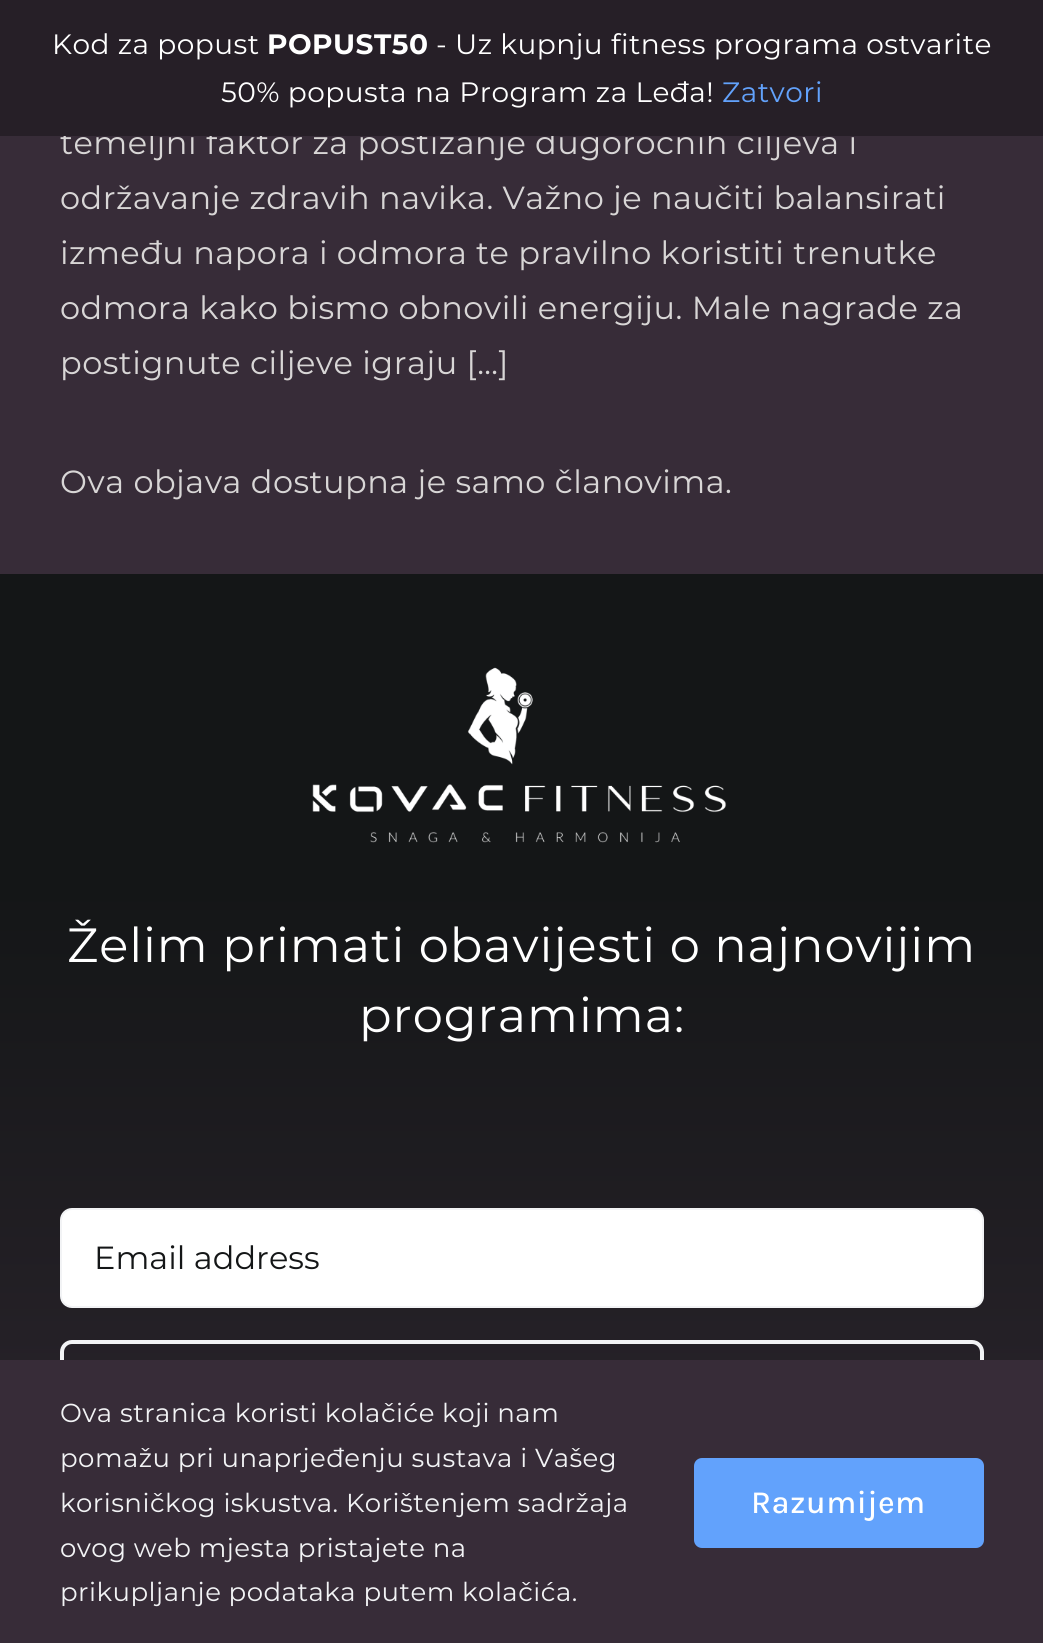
import math
import cairocffi as cairo

surface = cairo.ImageSurface(cairo.FORMAT_RGB24, 1043, 1643)
cr = cairo.Context(surface)
options = cairo.FontOptions()
options.set_hint_metrics(cairo.HINT_METRICS_OFF)
options.set_hint_style(cairo.HINT_STYLE_NONE)
cr.set_font_options(options)
cr.set_miter_limit(4)


def use_color(code):
    cr.set_source_rgb(*(v / 255 for v in bytes.fromhex(code[-6:])))


def spaced_text(x, y, s, letter, word):
    cr.move_to(x, y)
    for ch in s:
        cr.show_text(ch)
        cr.rel_move_to(letter + word * (ch == ' '), 0)


def round_rect(x, y, w, h, r):
    cr.new_sub_path()
    for i, (u, v) in enumerate([(x + w - r, y + h - r), (x + r, y + h - r), (x + r, y + r), (x + w - r, y + r)]):
        cr.arc(u, v, r, i * math.pi / 2, (i + 1) * math.pi / 2)
    cr.close_path()


def picture(path, x, y, w, h):
    cr.save()
    cr.set_source_surface(cairo.ImageSurface.create_from_png(path), x, y)
    cr.rectangle(x, y, w, h)
    cr.fill()
    cr.restore()


use_color("#372c38")
cr.paint()
cr.select_font_face("Montserrat")
cr.set_font_size(32)
use_color("#d8d6d6")
spaced_text(60, 154, "temeljni faktor za postizanje dugoročnih ciljeva i", 0.48, 0)
use_color("#261f27")
cr.rectangle(0, 0, 1043, 136)
cr.fill()
cr.set_font_size(28)
use_color("#ffffff")
spaced_text(52, 54, "Kod za popust", 0.48, 0)
cr.select_font_face("Montserrat", cairo.FONT_SLANT_NORMAL, cairo.FONT_WEIGHT_BOLD)
spaced_text(267, 54, "POPUST50", 0.48, 0)
cr.select_font_face("Montserrat")
spaced_text(436, 54, "- Uz kupnju fitness programa ostvarite", 0.48, 0)
spaced_text(221, 102, "50% popusta na Program za Leđa!", 0.48, 0)
use_color("#62a2fc")
spaced_text(722, 102, "Zatvori", 0.48, 0)
cr.set_font_size(32)
use_color("#d8d6d6")
spaced_text(60, 209, "održavanje zdravih navika. Važno je naučiti balansirati", 0.48, 0)
spaced_text(60, 264, "između napora i odmora te pravilno koristiti trenutke", 0.48, 0)
spaced_text(60, 319, "odmora kako bismo obnovili energiju. Male nagrade za", 0.48, 0)
spaced_text(60, 374, "postignute ciljeve igraju […]", 0.48, 0)
spaced_text(60, 493, "Ova objava dostupna je samo članovima.", 0.48, 0)
gradient = cairo.LinearGradient(522, 574, 522, 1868)
gradient.add_color_stop_rgba(0.24, 0.078, 0.086, 0.09, 1)
gradient.add_color_stop_rgba(1, 0.216, 0.173, 0.22, 1)
cr.set_source(gradient)
cr.rectangle(0, 574, 1043, 786)
cr.fill()
picture("img1.png", 312, 667, 415, 176)
cr.set_font_size(48)
use_color("#ffffff")
spaced_text(67, 962, "Želim primati obavijesti o najnovijim", 0.95, 0)
spaced_text(359, 1032, "programima:", 0.95, 0)
round_rect(61, 1209, 922, 98, 11)
cr.fill_preserve()
use_color("#f2f3f5")
cr.stroke()
cr.set_font_size(32)
use_color("#141617")
cr.move_to(94, 1269)
cr.show_text("Email address")
round_rect(62, 1342, 920, 104, 10)
use_color("#f2f3f5")
cr.set_line_width(4)
cr.stroke()
use_color("#372c38")
cr.rectangle(60, 1360, 924, 88)
cr.fill()
cr.set_font_size(26)
use_color("#f2f3f5")
spaced_text(60, 1422, "Ova stranica koristi kolačiće koji nam", 0.48, 0)
spaced_text(60, 1467, "pomažu pri unaprjeđenju sustava i Vašeg", 0.48, 0)
spaced_text(60, 1512, "korisničkog iskustva. Korištenjem sadržaja", 0.48, 0)
spaced_text(60, 1557, "ovog web mjesta pristajete na", 0.48, 0)
spaced_text(60, 1601, "prikupljanje podataka putem kolačića.", 0.48, 0)
use_color("#62a2fc")
round_rect(694, 1458, 290, 90, 8)
cr.fill()
cr.select_font_face("Karla Medium")
cr.set_font_size(32)
use_color("#ffffff")
spaced_text(751, 1513, "Razumijem", 0.48, 0)
surface.write_to_png("result.png")
